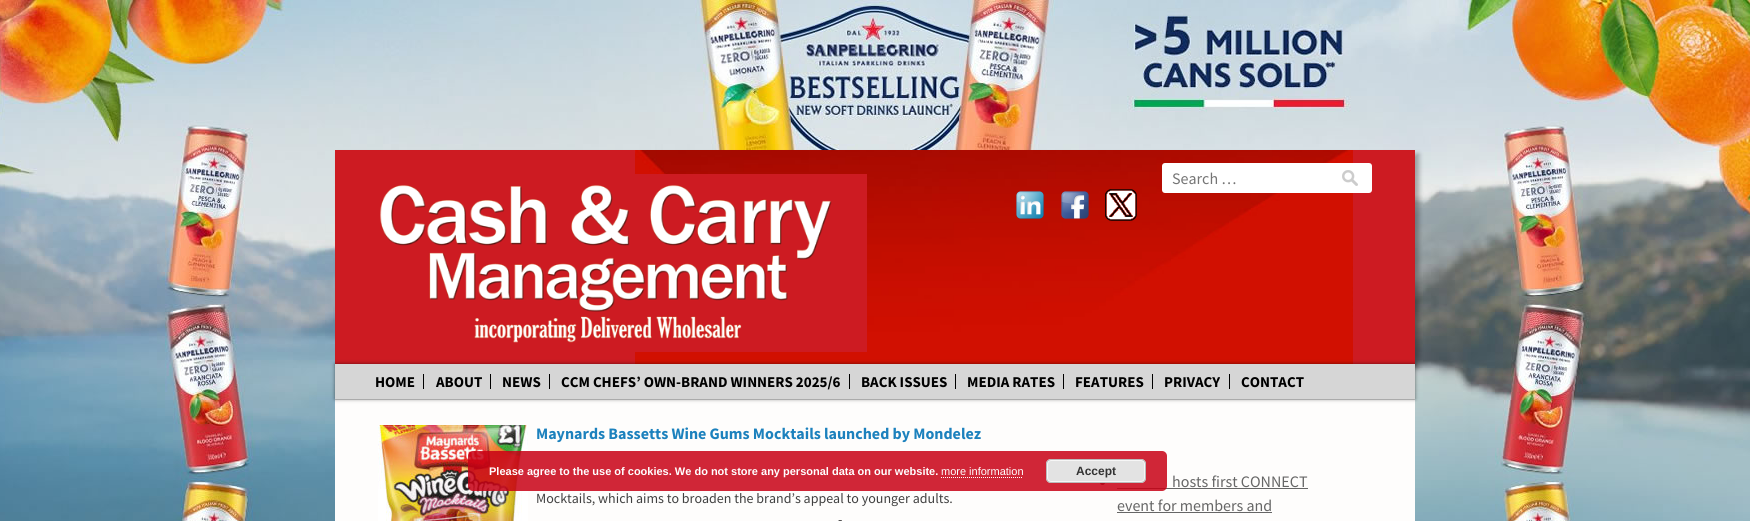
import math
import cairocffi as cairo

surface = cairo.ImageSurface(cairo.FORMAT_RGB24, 1750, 521)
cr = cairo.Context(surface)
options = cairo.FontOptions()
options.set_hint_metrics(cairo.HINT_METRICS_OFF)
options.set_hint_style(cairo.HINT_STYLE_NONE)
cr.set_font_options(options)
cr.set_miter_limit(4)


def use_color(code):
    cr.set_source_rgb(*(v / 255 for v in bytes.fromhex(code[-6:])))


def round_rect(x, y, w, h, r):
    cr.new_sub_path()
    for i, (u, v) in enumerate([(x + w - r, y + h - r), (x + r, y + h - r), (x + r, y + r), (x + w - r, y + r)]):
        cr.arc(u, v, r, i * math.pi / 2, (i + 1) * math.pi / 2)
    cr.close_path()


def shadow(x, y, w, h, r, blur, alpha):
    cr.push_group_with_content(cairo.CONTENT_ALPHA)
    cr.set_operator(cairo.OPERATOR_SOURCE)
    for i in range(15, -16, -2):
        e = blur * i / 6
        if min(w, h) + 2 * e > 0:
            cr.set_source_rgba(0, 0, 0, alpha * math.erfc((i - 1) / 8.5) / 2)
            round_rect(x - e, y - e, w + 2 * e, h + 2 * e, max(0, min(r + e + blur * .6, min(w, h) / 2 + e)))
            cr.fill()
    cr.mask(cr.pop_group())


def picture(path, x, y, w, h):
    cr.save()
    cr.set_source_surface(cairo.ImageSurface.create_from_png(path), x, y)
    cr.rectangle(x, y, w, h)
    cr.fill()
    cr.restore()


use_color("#fefdfc")
cr.paint()
cr.rectangle(334.5, 399.5, 1081, 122)
use_color("#d7d7d7")
cr.set_line_width(1)
cr.stroke()
picture("img1.png", 0, 0, 335, 521)
picture("img2.png", 335, 0, 1080, 150)
picture("img3.png", 1415, 0, 335, 521)
use_color("#000000")
shadow(339, 154, 1080, 214, 0, 2.5, 0.3)
use_color("#cd1b22")
cr.rectangle(335, 150, 1080, 214)
cr.fill()
picture("img4.png", 635, 150, 718, 214)
picture("img5.png", 380, 174, 487, 178)
use_color("#ffffff")
round_rect(1162, 163, 210, 30, 3)
cr.fill()
picture("img6.png", 1342, 170, 16, 16)
cr.select_font_face("Source Sans Pro")
cr.set_font_size(16)
use_color("#757575")
cr.move_to(1172, 184)
cr.show_text("Search …")
picture("img7.png", 1016, 191, 28, 28)
picture("img8.png", 1061, 191, 28, 28)
picture("img9.png", 1105, 189, 32, 32)
use_color("#000000")
shadow(335, 364, 1080, 35, 0, 2, 0.5)
use_color("#d6d6d6")
cr.rectangle(335, 364, 1080, 35)
cr.fill()
use_color("#000000")
cr.rectangle(423, 374, 1, 15)
cr.fill()
cr.select_font_face("Source Sans Pro", cairo.FONT_SLANT_NORMAL, cairo.FONT_WEIGHT_BOLD)
cr.set_font_size(15)
cr.move_to(375, 387)
cr.show_text("HOME")
cr.rectangle(490, 374, 1, 15)
cr.fill()
cr.move_to(436, 387)
cr.show_text("ABOUT")
cr.rectangle(549, 374, 1, 15)
cr.fill()
cr.move_to(502, 387)
cr.show_text("NEWS")
cr.rectangle(849, 374, 1, 15)
cr.fill()
cr.move_to(561, 387)
cr.show_text("CCM CHEFS’ OWN-BRAND WINNERS 2025/6")
cr.rectangle(955, 374, 1, 15)
cr.fill()
cr.move_to(861, 387)
cr.show_text("BACK ISSUES")
cr.rectangle(1063, 374, 1, 15)
cr.fill()
cr.move_to(967, 387)
cr.show_text("MEDIA RATES")
cr.rectangle(1152, 374, 1, 15)
cr.fill()
cr.move_to(1075, 387)
cr.show_text("FEATURES")
cr.rectangle(1229, 374, 1, 15)
cr.fill()
cr.move_to(1164, 387)
cr.show_text("PRIVACY")
cr.move_to(1241, 387)
cr.show_text("CONTACT")
picture("img10.png", 378, 425, 150, 96)
cr.set_font_size(16)
use_color("#1c81bd")
cr.move_to(536, 439)
cr.show_text("Maynards Bassetts Wine Gums Mocktails launched by Mondelez")
cr.select_font_face("Source Sans Pro")
cr.set_font_size(14)
use_color("#404040")
cr.move_to(536, 503)
cr.show_text("Mocktails, which aims to broaden the brand’s appeal to younger adults.")
cr.move_to(838, 524)
cr.show_text("-")
cr.new_path()
cr.arc(1102.5, 482.5, 2.5, 0, 2 * math.pi)
cr.fill()
cr.set_font_size(16)
use_color("#666666")
cr.move_to(1172, 487)
cr.show_text("hosts first CONNECT")
cr.rectangle(1117, 488, 191, 1)
cr.fill()
cr.move_to(1117, 511)
cr.show_text("event for members and")
cr.rectangle(1117, 512, 155, 1)
cr.fill()
cr.set_source_rgba(0.784, 0, 0.082, 0.85)
round_rect(468, 451, 699, 40, 5)
cr.fill()
cr.select_font_face("Liberation Sans", cairo.FONT_SLANT_NORMAL, cairo.FONT_WEIGHT_BOLD)
cr.set_font_size(11)
use_color("#ffffff")
cr.move_to(489, 475)
cr.show_text("Please agree to the use of cookies. We do not store any personal data on our website.")
cr.select_font_face("Liberation Sans")
cr.move_to(941, 475)
cr.show_text("more information")
cr.new_path()
cr.move_to(941, 477.5)
cr.line_to(1023, 477.5)
cr.set_dash([1, 1])
cr.stroke()
use_color("#e3e3e3")
round_rect(1046, 459, 100, 24, 5)
cr.fill()
round_rect(1047.5, 460.5, 97, 21, 3.5)
use_color("#f6f6f6")
cr.set_dash([])
cr.stroke()
round_rect(1046.5, 459.5, 99, 23, 4.5)
use_color("#bbbbbb")
cr.stroke()
cr.select_font_face("Liberation Sans", cairo.FONT_SLANT_NORMAL, cairo.FONT_WEIGHT_BOLD)
cr.set_font_size(12)
use_color("#333333")
cr.move_to(1076, 475)
cr.show_text("Accept")
surface.write_to_png("result.png")
